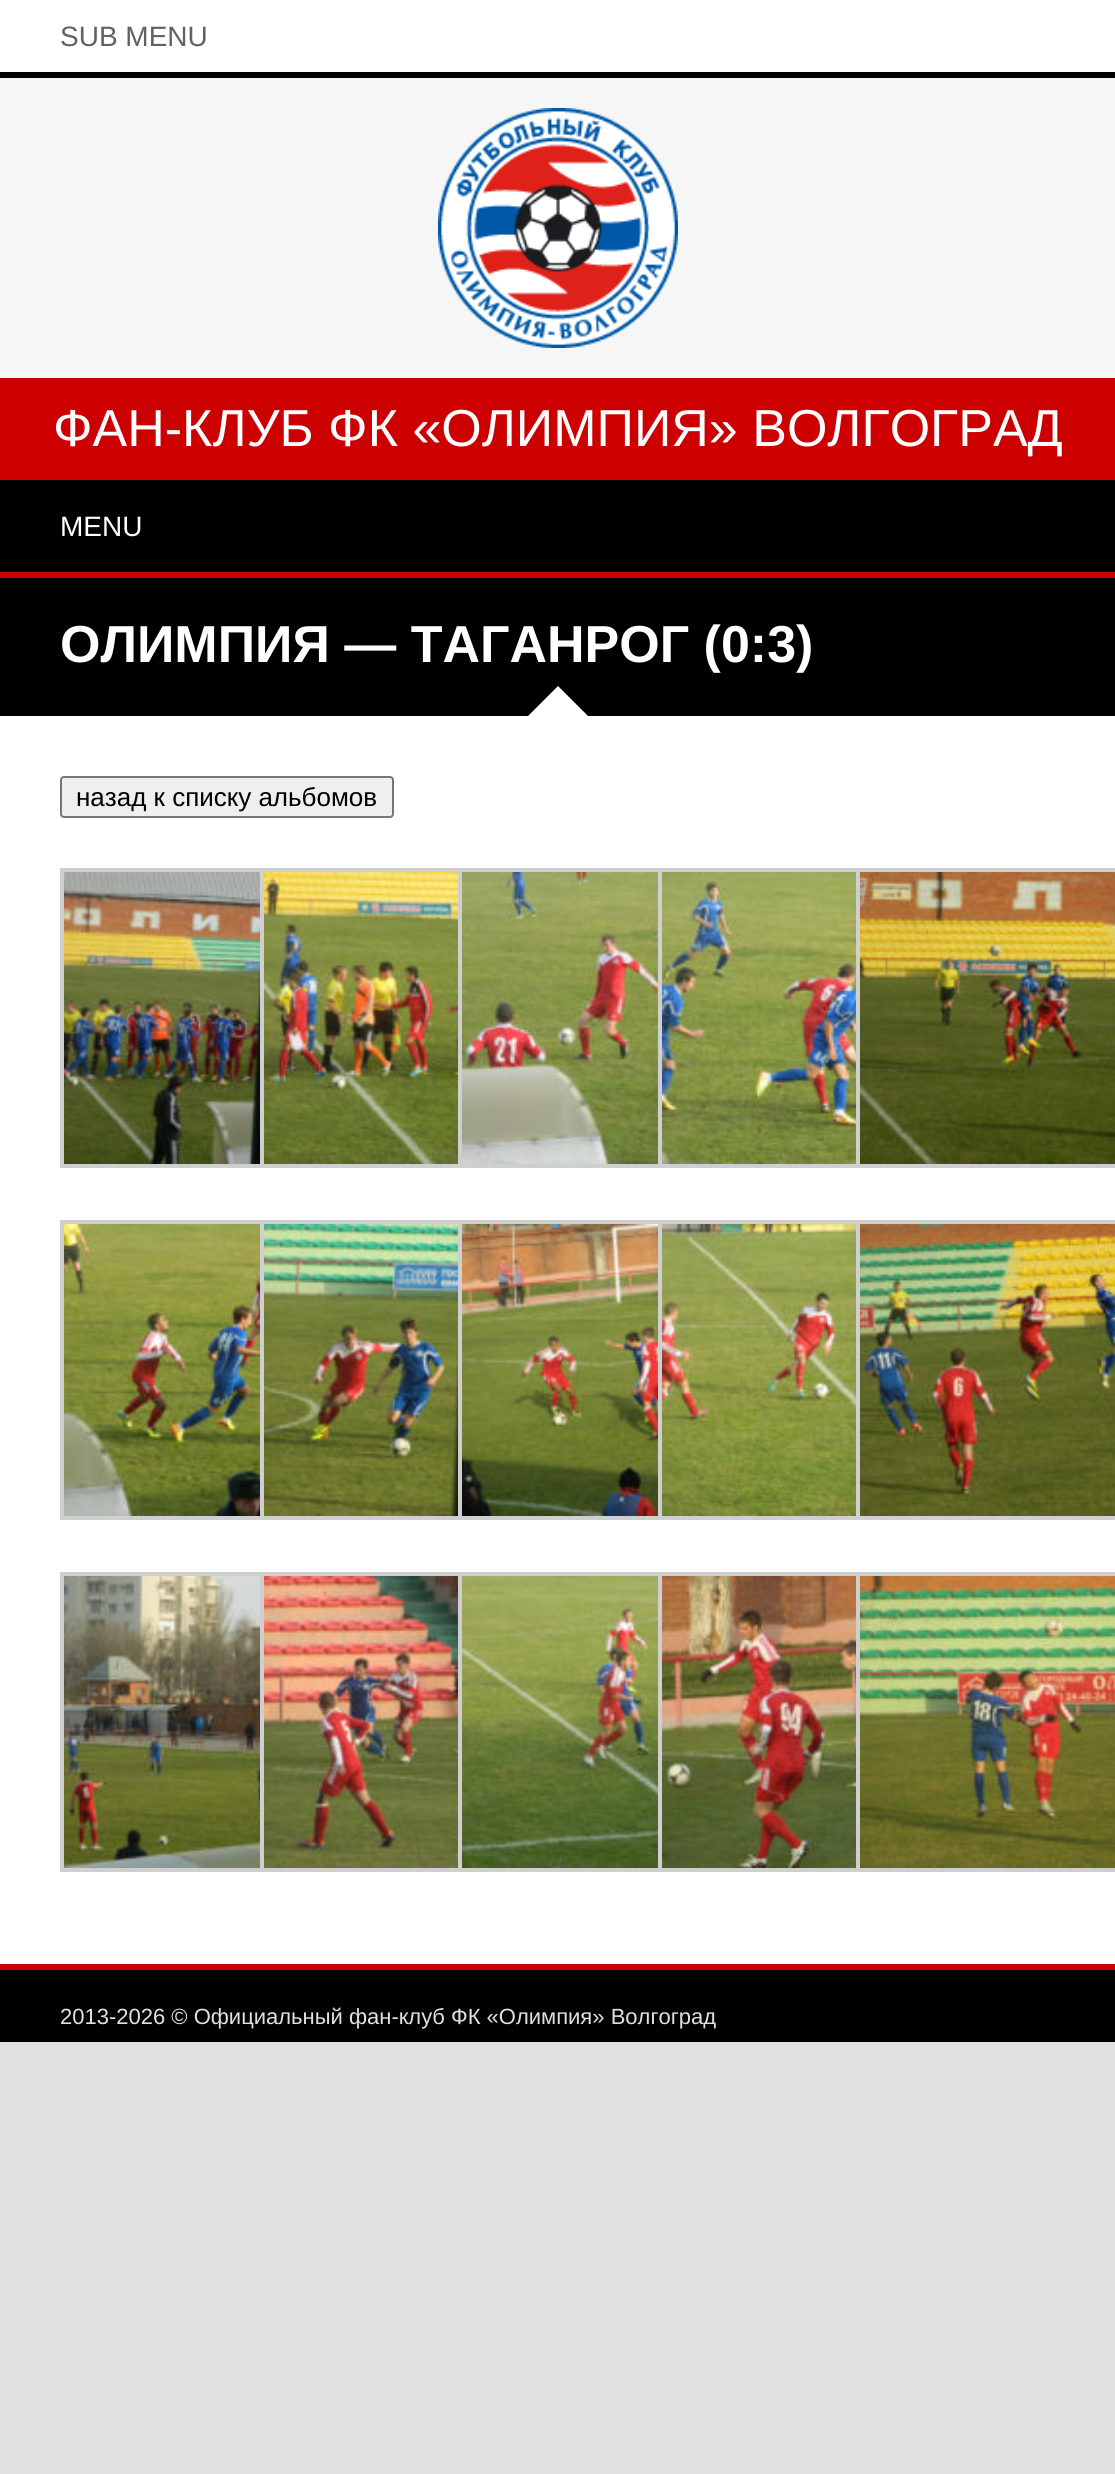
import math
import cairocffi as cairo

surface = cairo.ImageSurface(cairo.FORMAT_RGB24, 1115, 2474)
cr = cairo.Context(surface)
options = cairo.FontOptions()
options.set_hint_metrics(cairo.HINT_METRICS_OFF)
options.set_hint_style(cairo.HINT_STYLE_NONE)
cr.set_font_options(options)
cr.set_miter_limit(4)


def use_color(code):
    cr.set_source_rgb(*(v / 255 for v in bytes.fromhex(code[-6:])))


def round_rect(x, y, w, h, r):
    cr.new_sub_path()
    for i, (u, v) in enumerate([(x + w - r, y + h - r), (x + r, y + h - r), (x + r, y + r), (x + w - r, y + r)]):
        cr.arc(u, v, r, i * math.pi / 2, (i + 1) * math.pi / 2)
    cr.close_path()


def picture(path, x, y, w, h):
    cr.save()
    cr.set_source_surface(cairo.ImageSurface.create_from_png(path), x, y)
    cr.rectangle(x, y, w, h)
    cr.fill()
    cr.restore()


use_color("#e1e1e1")
cr.paint()
use_color("#ffffff")
cr.rectangle(0, 0, 1115, 72)
cr.fill()
use_color("#000000")
cr.rectangle(0, 72, 1115, 6)
cr.fill()
cr.select_font_face("Liberation Sans")
cr.set_font_size(28)
use_color("#616161")
cr.move_to(60, 46)
cr.show_text("SUB MENU")
use_color("#f6f6f6")
cr.rectangle(0, 78, 1115, 300)
cr.fill()
picture("img1.png", 438, 108, 240, 240)
use_color("#cc0000")
cr.rectangle(0, 378, 1115, 102)
cr.fill()
cr.set_font_size(52)
use_color("#ffffff")
cr.move_to(53, 446)
cr.show_text("ФАН-КЛУБ ФК «ОЛИМПИЯ» ВОЛГОГРАД")
use_color("#000000")
cr.rectangle(0, 480, 1115, 92)
cr.fill()
use_color("#cc0000")
cr.rectangle(0, 572, 1115, 6)
cr.fill()
cr.set_font_size(28)
use_color("#ffffff")
cr.move_to(60, 536)
cr.show_text("MENU")
use_color("#000000")
cr.rectangle(0, 578, 1115, 138)
cr.fill()
cr.select_font_face("Liberation Sans", cairo.FONT_SLANT_NORMAL, cairo.FONT_WEIGHT_BOLD)
cr.set_font_size(52)
use_color("#ffffff")
cr.move_to(60, 662)
cr.show_text("ОЛИМПИЯ — ТАГАНРОГ (0:3)")
cr.rectangle(0, 716, 1115, 1248)
cr.fill()
cr.new_path()
cr.move_to(588, 716)
cr.line_to(528, 716)
cr.line_to(558, 686)
cr.close_path()
cr.fill()
use_color("#efefef")
round_rect(61, 777, 332, 40, 3)
cr.fill_preserve()
use_color("#767676")
cr.stroke()
cr.select_font_face("Liberation Sans")
cr.set_font_size(26)
use_color("#000000")
cr.move_to(76, 806)
cr.show_text("назад к списку альбомов")
cr.rectangle(62, 870, 296, 296)
use_color("#cfcfcf")
cr.set_line_width(4)
cr.stroke()
picture("img2.png", 64, 872, 196, 292)
cr.rectangle(262, 870, 296, 296)
cr.stroke()
picture("img3.png", 264, 872, 194, 292)
cr.rectangle(460, 870, 296, 296)
cr.stroke()
picture("img4.png", 462, 872, 196, 292)
cr.rectangle(660, 870, 296, 296)
cr.stroke()
picture("img5.png", 662, 872, 194, 292)
cr.rectangle(858, 870, 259, 296)
cr.stroke()
picture("img6.png", 860, 872, 255, 292)
cr.rectangle(62, 1222, 296, 296)
cr.stroke()
picture("img7.png", 64, 1224, 196, 292)
cr.rectangle(262, 1222, 296, 296)
cr.stroke()
picture("img8.png", 264, 1224, 194, 292)
cr.rectangle(460, 1222, 296, 296)
cr.stroke()
picture("img9.png", 462, 1224, 196, 292)
cr.rectangle(660, 1222, 296, 296)
cr.stroke()
picture("img10.png", 662, 1224, 194, 292)
cr.rectangle(858, 1222, 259, 296)
cr.stroke()
picture("img11.png", 860, 1224, 255, 292)
cr.rectangle(62, 1574, 296, 296)
cr.stroke()
picture("img12.png", 64, 1576, 196, 292)
cr.rectangle(262, 1574, 296, 296)
cr.stroke()
picture("img13.png", 264, 1576, 194, 292)
cr.rectangle(460, 1574, 296, 296)
cr.stroke()
picture("img14.png", 462, 1576, 196, 292)
cr.rectangle(660, 1574, 296, 296)
cr.stroke()
picture("img15.png", 662, 1576, 194, 292)
cr.rectangle(858, 1574, 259, 296)
cr.stroke()
picture("img16.png", 860, 1576, 255, 292)
use_color("#000000")
cr.rectangle(0, 1970, 1115, 72)
cr.fill()
use_color("#cc0000")
cr.rectangle(0, 1964, 1115, 6)
cr.fill()
cr.set_font_size(22)
use_color("#e1e1e1")
cr.move_to(60, 2024)
cr.show_text("2013-2026 © Официальный фан-клуб ФК «Олимпия» Волгоград")
surface.write_to_png("result.png")
